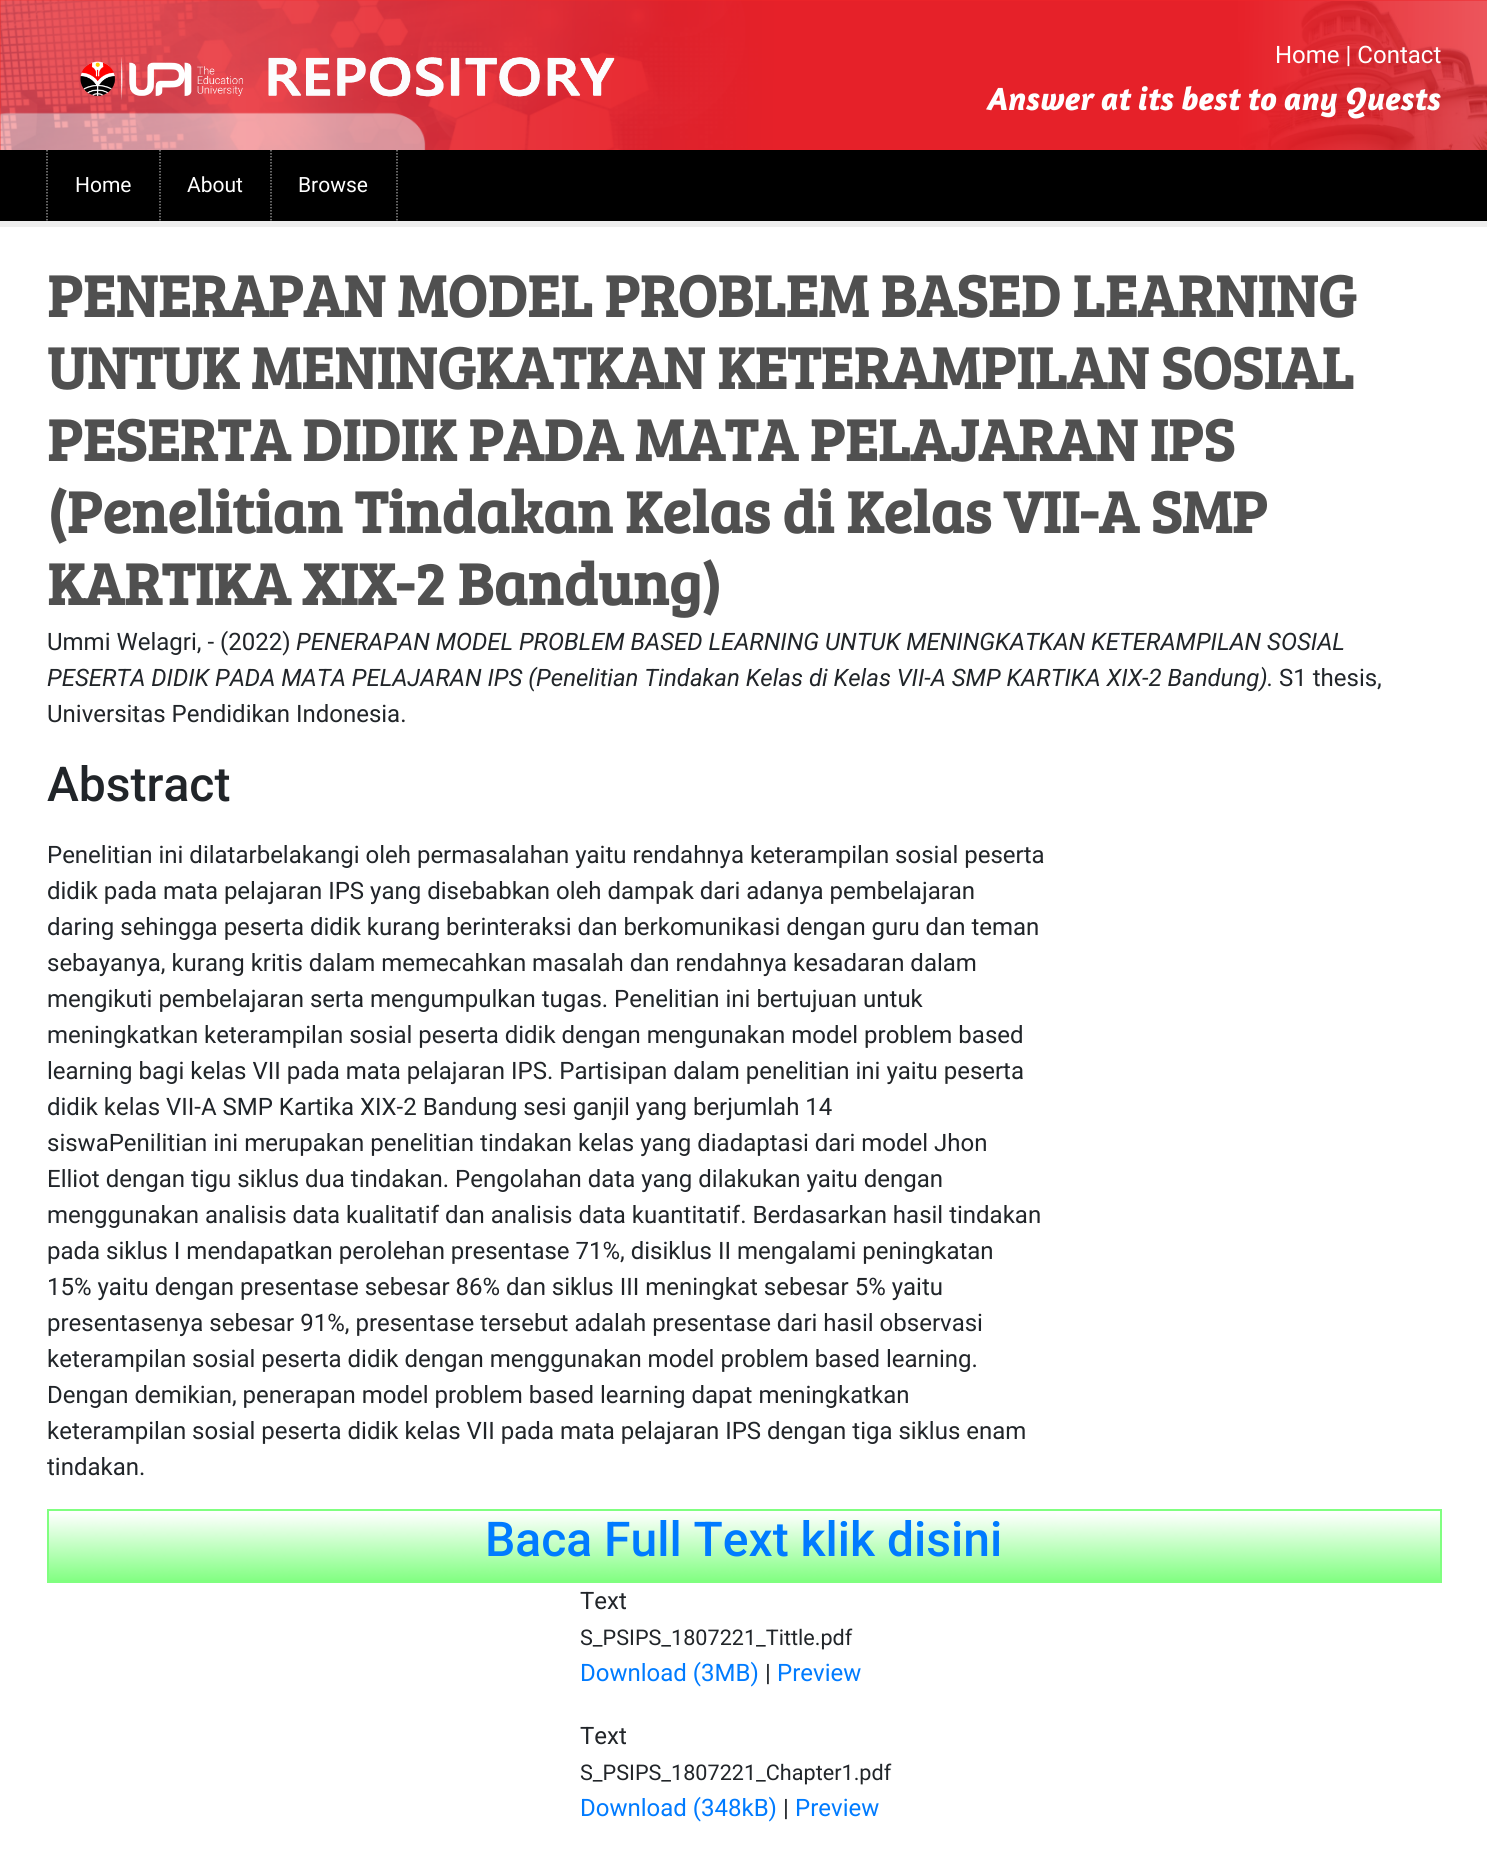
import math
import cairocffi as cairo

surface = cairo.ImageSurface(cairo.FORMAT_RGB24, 1487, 1857)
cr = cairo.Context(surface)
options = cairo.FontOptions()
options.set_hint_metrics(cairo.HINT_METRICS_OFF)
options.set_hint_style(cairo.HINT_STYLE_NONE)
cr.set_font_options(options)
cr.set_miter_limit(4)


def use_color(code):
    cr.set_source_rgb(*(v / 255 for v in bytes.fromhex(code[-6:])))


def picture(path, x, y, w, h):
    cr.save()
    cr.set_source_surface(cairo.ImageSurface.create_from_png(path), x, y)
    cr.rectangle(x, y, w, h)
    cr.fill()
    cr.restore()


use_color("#ffffff")
cr.paint()
use_color("#f32a29")
cr.rectangle(0, 0, 1487, 150)
cr.fill()
picture("img1.png", 0, 0, 1487, 150)
picture("img2.png", 80, 57, 535, 43)
cr.select_font_face("Roboto")
cr.set_font_size(24)
use_color("#ffffff")
cr.move_to(1275, 63)
cr.show_text("Home | Contact")
cr.select_font_face("Amaranth", cairo.FONT_SLANT_ITALIC, cairo.FONT_WEIGHT_BOLD)
cr.set_font_size(33)
cr.move_to(988, 110)
cr.show_text("Answer at its best to any Quests")
use_color("#000000")
cr.rectangle(0, 150, 1487, 71)
cr.fill()
cr.new_path()
cr.move_to(47, 150)
cr.line_to(47, 220.5)
use_color("#888888")
cr.set_line_width(1.5)
cr.set_dash([1.5, 1.5])
cr.stroke()
cr.select_font_face("Roboto")
cr.set_font_size(21)
use_color("#ffffff")
cr.move_to(75, 192)
cr.show_text("Home")
cr.new_path()
cr.move_to(160, 150)
cr.line_to(160, 220.5)
use_color("#888888")
cr.stroke()
use_color("#ffffff")
cr.move_to(187, 192)
cr.show_text("About")
cr.new_path()
cr.move_to(271, 150)
cr.line_to(271, 220.5)
use_color("#888888")
cr.stroke()
use_color("#ffffff")
cr.move_to(298, 192)
cr.show_text("Browse")
cr.new_path()
cr.move_to(397, 150)
cr.line_to(397, 220.5)
use_color("#888888")
cr.stroke()
use_color("#eeeeee")
cr.rectangle(0, 221, 1487, 6)
cr.fill()
cr.select_font_face("Bree Serif", cairo.FONT_SLANT_NORMAL, cairo.FONT_WEIGHT_BOLD)
cr.set_font_size(60)
use_color("#505050")
cr.move_to(47, 317)
cr.show_text("PENERAPAN MODEL PROBLEM BASED LEARNING")
cr.move_to(47, 389)
cr.show_text("UNTUK MENINGKATKAN KETERAMPILAN SOSIAL")
cr.move_to(47, 461)
cr.show_text("PESERTA DIDIK PADA MATA PELAJARAN IPS")
cr.move_to(47, 533)
cr.show_text("(Penelitian Tindakan Kelas di Kelas VII-A SMP")
cr.move_to(47, 605)
cr.show_text("KARTIKA XIX-2 Bandung)")
cr.select_font_face("Roboto")
cr.set_font_size(24)
use_color("#212529")
cr.move_to(47, 650)
cr.show_text("Ummi Welagri, - (2022)")
cr.select_font_face("Roboto", cairo.FONT_SLANT_ITALIC)
cr.move_to(296, 650)
cr.show_text("PENERAPAN MODEL PROBLEM BASED LEARNING UNTUK MENINGKATKAN KETERAMPILAN SOSIAL")
cr.move_to(47, 686)
cr.show_text("PESERTA DIDIK PADA MATA PELAJARAN IPS (Penelitian Tindakan Kelas di Kelas VII-A SMP KARTIKA XIX-2 Bandung).")
cr.select_font_face("Roboto")
cr.move_to(1279, 686)
cr.show_text("S1 thesis,")
cr.move_to(47, 722)
cr.show_text("Universitas Pendidikan Indonesia.")
cr.select_font_face("Roboto Medium")
cr.set_font_size(48)
cr.move_to(47, 801)
cr.show_text("Abstract")
cr.select_font_face("Roboto")
cr.set_font_size(24)
cr.move_to(47, 863)
cr.show_text("Penelitian ini dilatarbelakangi oleh permasalahan yaitu rendahnya keterampilan sosial peserta")
cr.move_to(47, 899)
cr.show_text("didik pada mata pelajaran IPS yang disebabkan oleh dampak dari adanya pembelajaran")
cr.move_to(47, 935)
cr.show_text("daring sehingga peserta didik kurang berinteraksi dan berkomunikasi dengan guru dan teman")
cr.move_to(47, 971)
cr.show_text("sebayanya, kurang kritis dalam memecahkan masalah dan rendahnya kesadaran dalam")
cr.move_to(47, 1007)
cr.show_text("mengikuti pembelajaran serta mengumpulkan tugas. Penelitian ini bertujuan untuk")
cr.move_to(47, 1043)
cr.show_text("meningkatkan keterampilan sosial peserta didik dengan mengunakan model problem based")
cr.move_to(47, 1079)
cr.show_text("learning bagi kelas VII pada mata pelajaran IPS. Partisipan dalam penelitian ini yaitu peserta")
cr.move_to(47, 1115)
cr.show_text("didik kelas VII-A SMP Kartika XIX-2 Bandung sesi ganjil yang berjumlah 14")
cr.move_to(47, 1151)
cr.show_text("siswaPenilitian ini merupakan penelitian tindakan kelas yang diadaptasi dari model Jhon")
cr.move_to(47, 1187)
cr.show_text("Elliot dengan tigu siklus dua tindakan. Pengolahan data yang dilakukan yaitu dengan")
cr.move_to(47, 1223)
cr.show_text("menggunakan analisis data kualitatif dan analisis data kuantitatif. Berdasarkan hasil tindakan")
cr.move_to(47, 1259)
cr.show_text("pada siklus I mendapatkan perolehan presentase 71%, disiklus II mengalami peningkatan")
cr.move_to(47, 1295)
cr.show_text("15% yaitu dengan presentase sebesar 86% dan siklus III meningkat sebesar 5% yaitu")
cr.move_to(47, 1331)
cr.show_text("presentasenya sebesar 91%, presentase tersebut adalah presentase dari hasil observasi")
cr.move_to(47, 1367)
cr.show_text("keterampilan sosial peserta didik dengan menggunakan model problem based learning.")
cr.move_to(47, 1403)
cr.show_text("Dengan demikian, penerapan model problem based learning dapat meningkatkan")
cr.move_to(47, 1439)
cr.show_text("keterampilan sosial peserta didik kelas VII pada mata pelajaran IPS dengan tiga siklus enam")
cr.move_to(47, 1475)
cr.show_text("tindakan.")
use_color("#80ff80")
cr.rectangle(49, 1512, 1391, 69)
cr.fill()
picture("img3.png", 49, 1511, 1391, 69)
cr.rectangle(48, 1510, 1393, 72)
cr.set_line_width(2)
cr.set_dash([])
cr.stroke()
cr.select_font_face("Roboto Medium")
cr.set_font_size(48)
use_color("#007bff")
cr.move_to(485, 1556)
cr.show_text("Baca Full Text klik disini")
cr.select_font_face("Roboto")
cr.set_font_size(24)
use_color("#212529")
cr.move_to(580, 1609)
cr.show_text("Text")
cr.set_font_size(21.6)
cr.move_to(580, 1645)
cr.show_text("S_PSIPS_1807221_Tittle.pdf")
cr.set_font_size(24)
use_color("#007bff")
cr.move_to(580, 1681)
cr.show_text("Download (3MB)")
use_color("#212529")
cr.move_to(765, 1681)
cr.show_text("|")
use_color("#007bff")
cr.move_to(777, 1681)
cr.show_text("Preview")
use_color("#212529")
cr.move_to(580, 1744)
cr.show_text("Text")
cr.set_font_size(21.6)
cr.move_to(580, 1780)
cr.show_text("S_PSIPS_1807221_Chapter1.pdf")
cr.set_font_size(24)
use_color("#007bff")
cr.move_to(580, 1816)
cr.show_text("Download (348kB)")
use_color("#212529")
cr.move_to(783, 1816)
cr.show_text("|")
use_color("#007bff")
cr.move_to(795, 1816)
cr.show_text("Preview")
surface.write_to_png("result.png")
